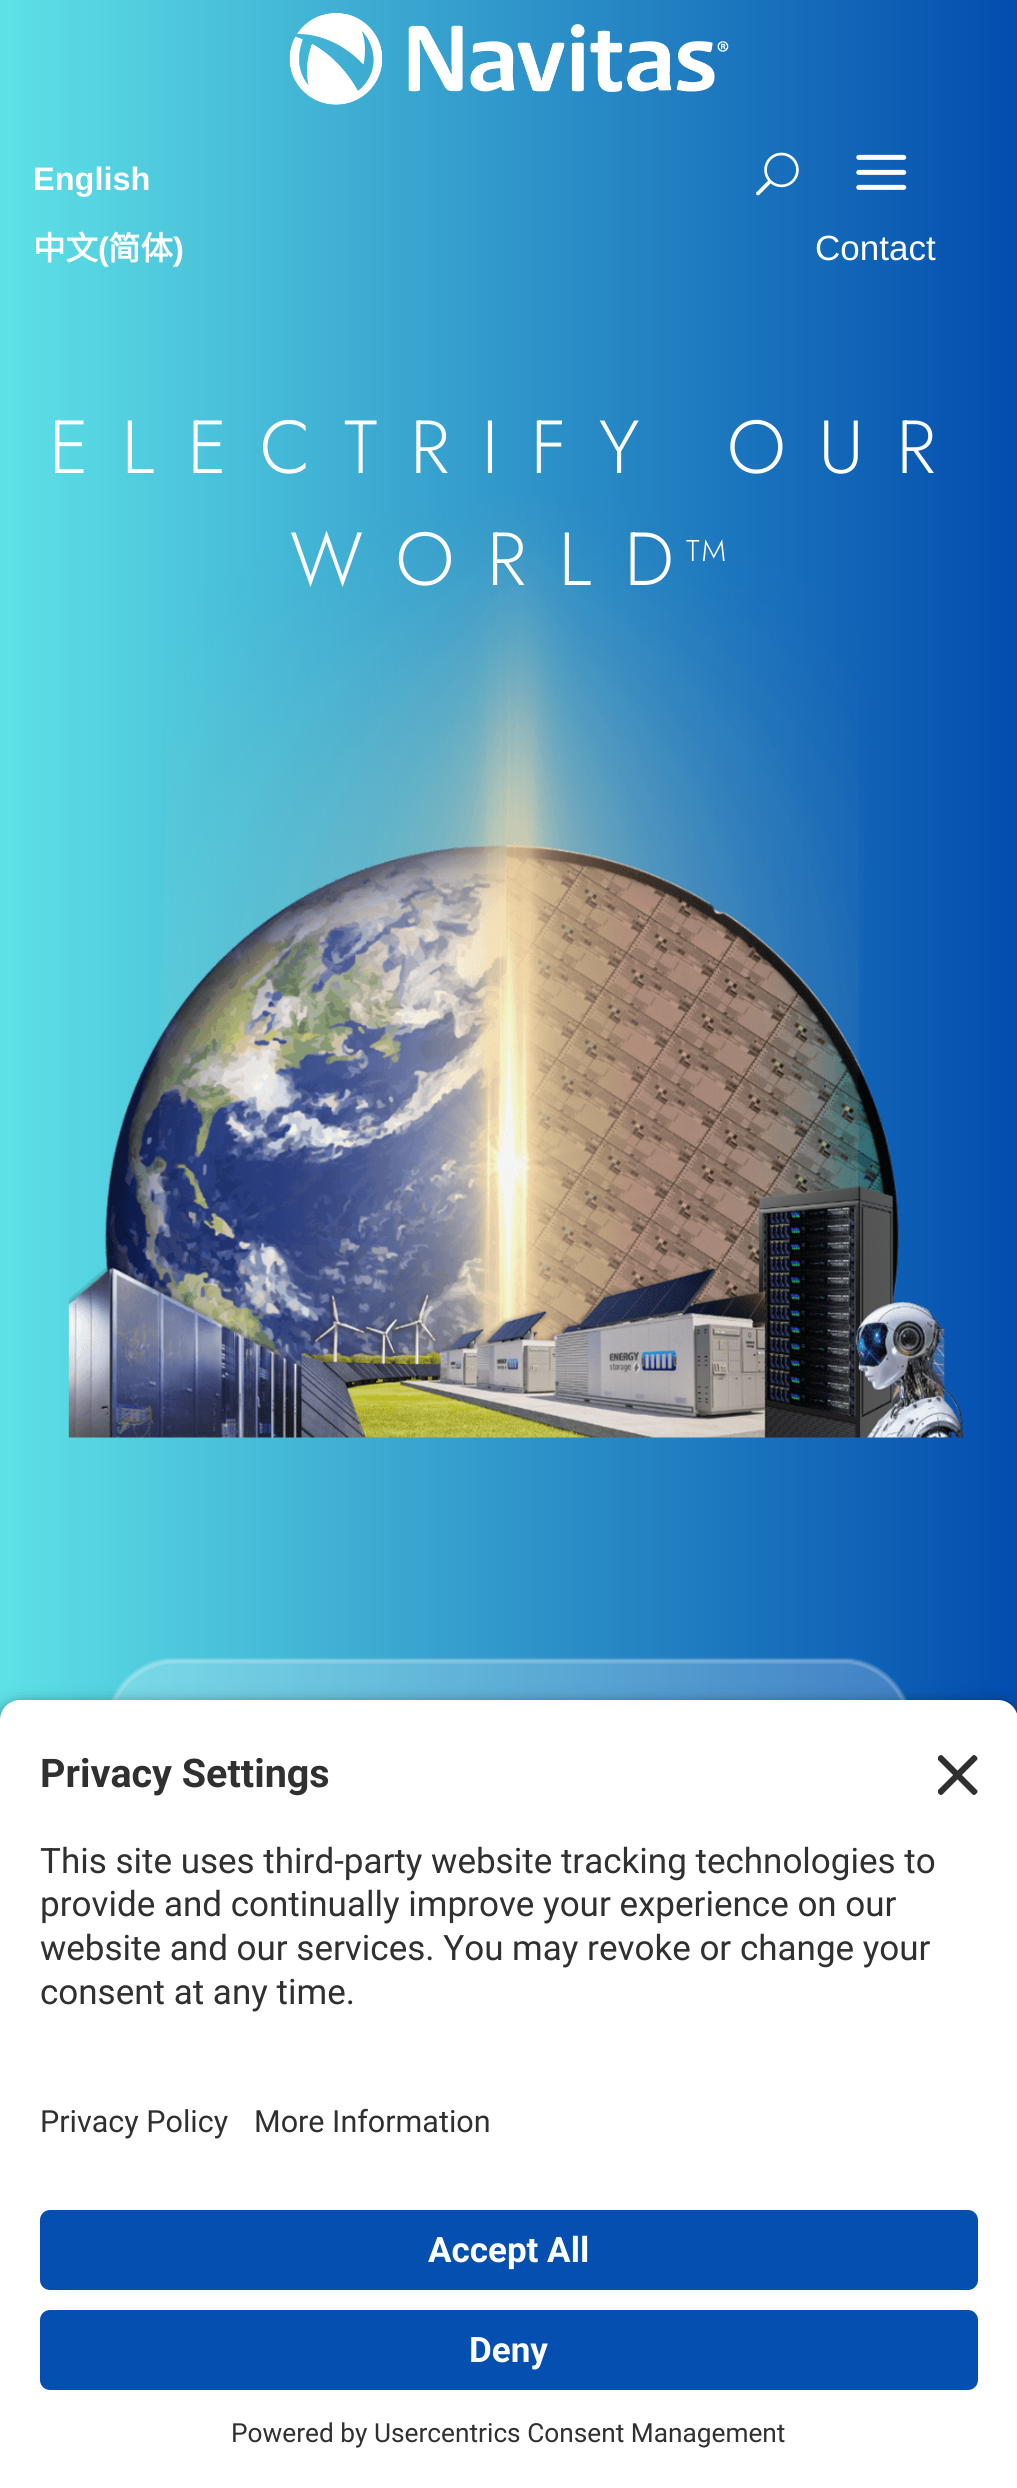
import math
import cairocffi as cairo

surface = cairo.ImageSurface(cairo.FORMAT_RGB24, 1017, 2488)
cr = cairo.Context(surface)
options = cairo.FontOptions()
options.set_hint_metrics(cairo.HINT_METRICS_OFF)
options.set_hint_style(cairo.HINT_STYLE_NONE)
cr.set_font_options(options)
cr.set_miter_limit(4)


def use_color(code):
    cr.set_source_rgb(*(v / 255 for v in bytes.fromhex(code[-6:])))


def spaced_text(x, y, s, letter, word):
    cr.move_to(x, y)
    for ch in s:
        cr.show_text(ch)
        cr.rel_move_to(letter + word * (ch == ' '), 0)


def round_rect(x, y, w, h, r):
    cr.new_sub_path()
    for i, (u, v) in enumerate([(x + w - r, y + h - r), (x + r, y + h - r), (x + r, y + r), (x + w - r, y + r)]):
        cr.arc(u, v, r, i * math.pi / 2, (i + 1) * math.pi / 2)
    cr.close_path()


def shadow(x, y, w, h, r, blur, alpha):
    cr.push_group_with_content(cairo.CONTENT_ALPHA)
    cr.set_operator(cairo.OPERATOR_SOURCE)
    for i in range(15, -16, -2):
        e = blur * i / 6
        if min(w, h) + 2 * e > 0:
            cr.set_source_rgba(0, 0, 0, alpha * math.erfc((i - 1) / 8.5) / 2)
            round_rect(x - e, y - e, w + 2 * e, h + 2 * e, max(0, min(r + e + blur * .6, min(w, h) / 2 + e)))
            cr.fill()
    cr.mask(cr.pop_group())


def picture(path, x, y, w, h):
    cr.save()
    cr.set_source_surface(cairo.ImageSurface.create_from_png(path), x, y)
    cr.rectangle(x, y, w, h)
    cr.fill()
    cr.restore()


use_color("#ffffff")
cr.paint()
gradient = cairo.LinearGradient(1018, 2083, 0, 2083)
gradient.add_color_stop_rgba(0, 0.008, 0.298, 0.682, 1)
gradient.add_color_stop_rgba(0.99, 0.365, 0.878, 0.902, 1)
cr.set_source(gradient)
cr.rectangle(0, 0, 1017, 1720)
cr.fill()
picture("img1.png", 289, 12, 440, 93)
cr.select_font_face("Liberation Sans", cairo.FONT_SLANT_NORMAL, cairo.FONT_WEIGHT_BOLD)
cr.set_font_size(32.5)
use_color("#ffffff")
cr.move_to(33, 190)
cr.show_text("English")
cr.select_font_face("Noto Sans CJK SC", cairo.FONT_SLANT_NORMAL, cairo.FONT_WEIGHT_BOLD)
cr.move_to(33, 260)
cr.show_text("中文")
cr.select_font_face("Liberation Sans", cairo.FONT_SLANT_NORMAL, cairo.FONT_WEIGHT_BOLD)
cr.move_to(98, 260)
cr.show_text("(")
cr.select_font_face("Noto Sans CJK SC", cairo.FONT_SLANT_NORMAL, cairo.FONT_WEIGHT_BOLD)
cr.move_to(108, 260)
cr.show_text("简体")
cr.select_font_face("Liberation Sans", cairo.FONT_SLANT_NORMAL, cairo.FONT_WEIGHT_BOLD)
cr.move_to(173, 260)
cr.show_text(")")
picture("img2.png", 756, 152, 43, 44)
picture("img3.png", 856, 154, 51, 36)
cr.select_font_face("Liberation Sans")
cr.set_font_size(35)
cr.move_to(815, 260)
cr.show_text("Contact")
cr.select_font_face("Jost Light")
cr.set_font_size(75)
spaced_text(49, 473, "ELECTRIFY OUR", 32.5, 0)
spaced_text(290, 585, "WORLD", 32.5, 0)
cr.set_font_size(30)
spaced_text(686, 561, "TM", 2, 0)
picture("img4.png", 68, 497, 896, 941)
picture("img5.png", 110, 1657, 797, 43)
use_color("#000000")
shadow(0, 1708, 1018, 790, 20, 9, 0.8)
use_color("#ffffff")
cr.new_path()
cr.move_to(20, 1700)
cr.line_to(998, 1700)
cr.curve_to(1009, 1700, 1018, 1709, 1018, 1720)
cr.line_to(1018, 2065)
cr.line_to(0, 2065)
cr.line_to(0, 1720)
cr.curve_to(0, 1709, 9, 1700, 20, 1700)
cr.close_path()
cr.fill()
cr.select_font_face("Roboto", cairo.FONT_SLANT_NORMAL, cairo.FONT_WEIGHT_BOLD)
cr.set_font_size(39.5)
use_color("#303030")
cr.move_to(40, 1787)
cr.show_text("Privacy Settings")
picture("img6.png", 938, 1755, 40, 40)
cr.select_font_face("Roboto")
cr.set_font_size(35)
cr.move_to(40, 1873)
cr.show_text("This site uses third-party website tracking technologies to")
cr.move_to(40, 1916)
cr.show_text("provide and continually improve your experience on our")
cr.move_to(40, 1960)
cr.show_text("website and our services. You may revoke or change your")
cr.move_to(40, 2004)
cr.show_text("consent at any time.")
use_color("#ffffff")
cr.rectangle(0, 2065, 1017, 423)
cr.fill()
cr.set_font_size(30.5)
use_color("#303030")
cr.move_to(40, 2132)
cr.show_text("Privacy Policy")
cr.move_to(254, 2132)
cr.show_text("More Information")
use_color("#044faf")
round_rect(40, 2210, 938, 80, 10)
cr.fill()
cr.select_font_face("Roboto", cairo.FONT_SLANT_NORMAL, cairo.FONT_WEIGHT_BOLD)
cr.set_font_size(35)
use_color("#ffffff")
cr.move_to(428, 2262)
cr.show_text("Accept All")
use_color("#044faf")
round_rect(40, 2310, 938, 80, 10)
cr.fill()
use_color("#ffffff")
cr.move_to(469, 2362)
cr.show_text("Deny")
cr.select_font_face("Roboto")
cr.set_font_size(26.25)
use_color("#303030")
cr.move_to(231, 2442)
cr.show_text("Powered by Usercentrics Consent Management")
surface.write_to_png("result.png")
